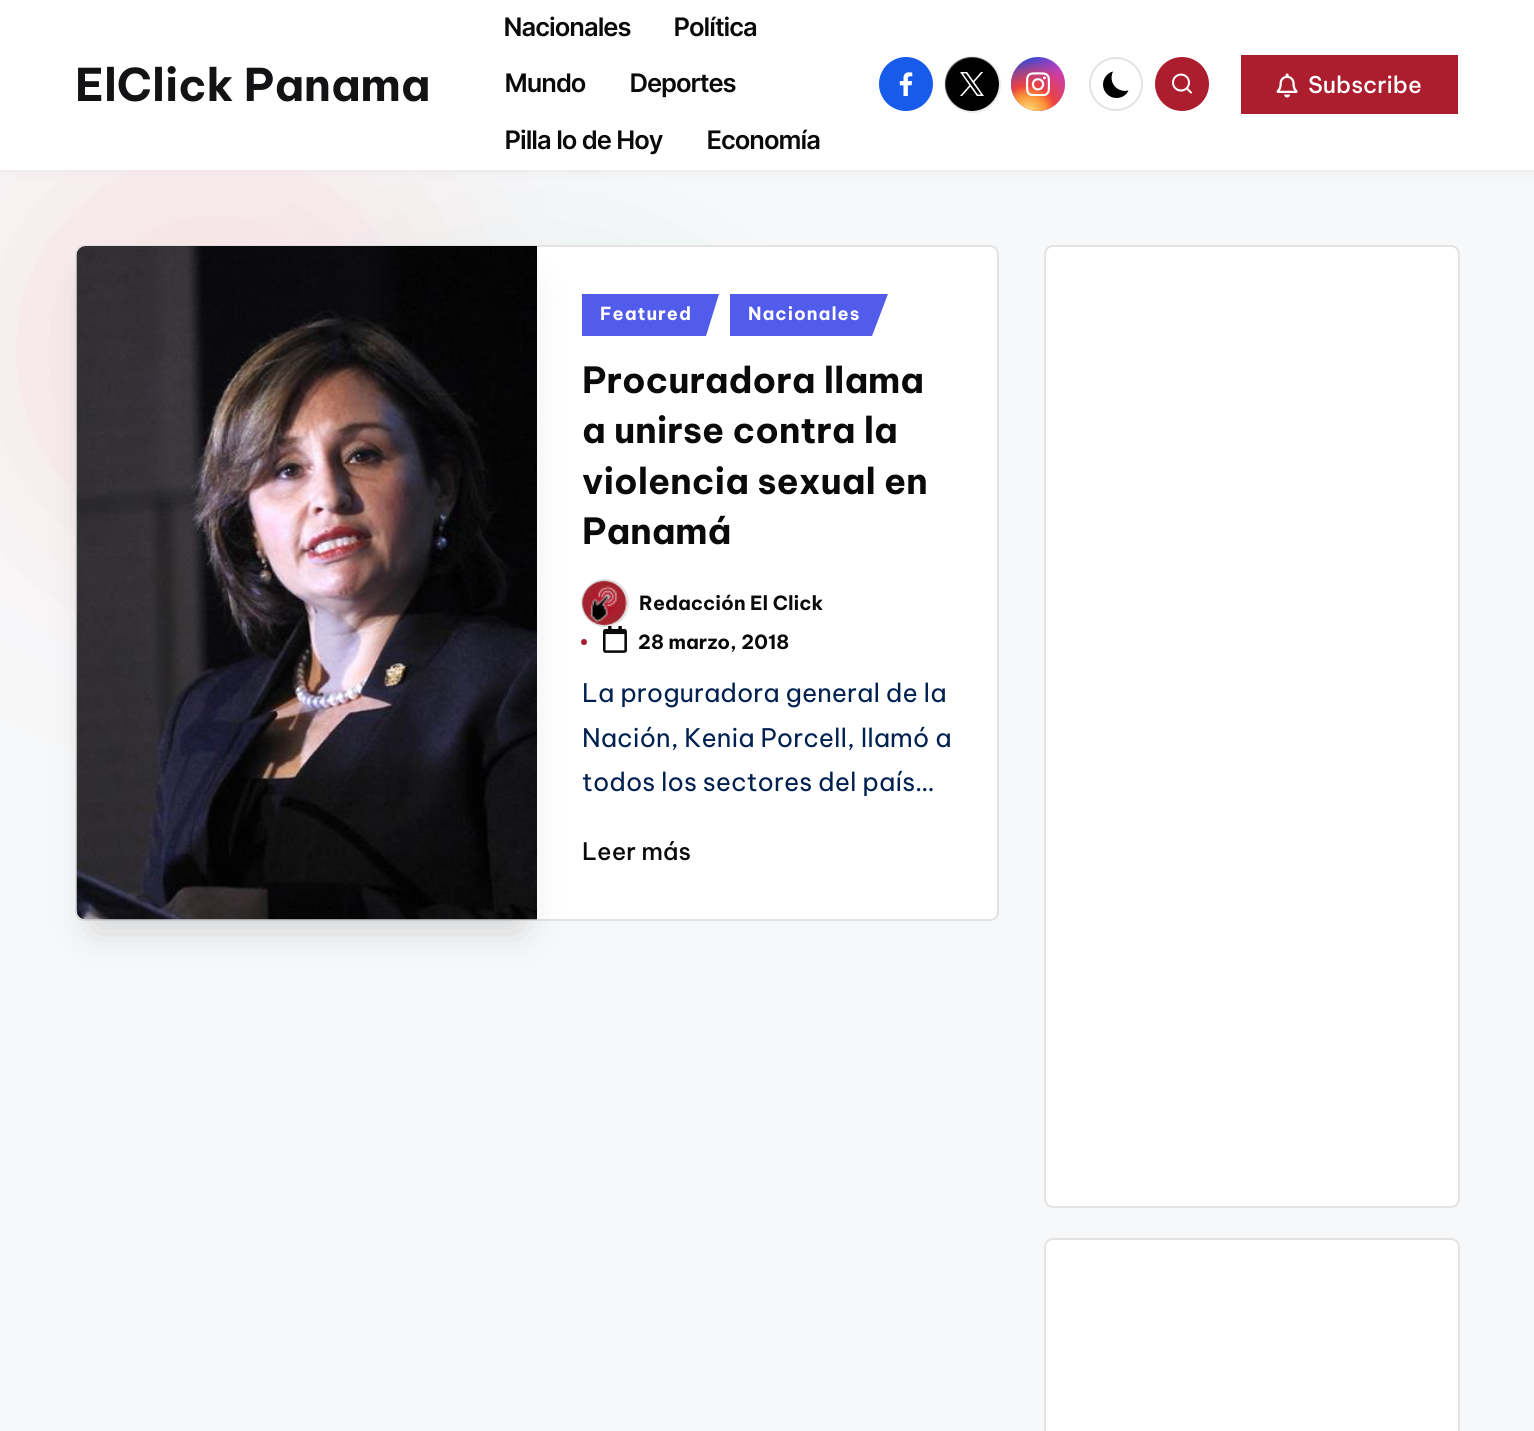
import math
import cairocffi as cairo

surface = cairo.ImageSurface(cairo.FORMAT_RGB24, 1534, 1431)
cr = cairo.Context(surface)
options = cairo.FontOptions()
options.set_hint_metrics(cairo.HINT_METRICS_OFF)
options.set_hint_style(cairo.HINT_STYLE_NONE)
cr.set_font_options(options)
cr.set_miter_limit(4)


def use_color(code):
    cr.set_source_rgb(*(v / 255 for v in bytes.fromhex(code[-6:])))


def spaced_text(x, y, s, letter, word):
    cr.move_to(x, y)
    for ch in s:
        cr.show_text(ch)
        cr.rel_move_to(letter + word * (ch == ' '), 0)


def round_rect(x, y, w, h, r):
    cr.new_sub_path()
    for i, (u, v) in enumerate([(x + w - r, y + h - r), (x + r, y + h - r), (x + r, y + r), (x + w - r, y + r)]):
        cr.arc(u, v, r, i * math.pi / 2, (i + 1) * math.pi / 2)
    cr.close_path()


def shadow(x, y, w, h, r, blur, alpha):
    cr.push_group_with_content(cairo.CONTENT_ALPHA)
    cr.set_operator(cairo.OPERATOR_SOURCE)
    for i in range(15, -16, -2):
        e = blur * i / 6
        if min(w, h) + 2 * e > 0:
            cr.set_source_rgba(0, 0, 0, alpha * math.erfc((i - 1) / 8.5) / 2)
            round_rect(x - e, y - e, w + 2 * e, h + 2 * e, max(0, min(r + e + blur * .6, min(w, h) / 2 + e)))
            cr.fill()
    cr.mask(cr.pop_group())


def picture(path, x, y, w, h):
    cr.save()
    cr.set_source_surface(cairo.ImageSurface.create_from_png(path), x, y)
    cr.rectangle(x, y, w, h)
    cr.fill()
    cr.restore()


use_color("#f7f8f9")
cr.paint()
use_color("#bebebe")
shadow(0, 2, 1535, 169, 0, 4.5, 0.3)
use_color("#f7e3e5")
shadow(0, 135, 432, 432, 216, 96, 1)
use_color("#04868b")
shadow(312, 300, 432, 432, 216, 96, 0.1)
use_color("#ffffff")
cr.rectangle(0, 0, 1534, 170)
cr.fill()
cr.select_font_face("Be Vietnam Pro", cairo.FONT_SLANT_NORMAL, cairo.FONT_WEIGHT_BOLD)
cr.set_font_size(45)
use_color("#131315")
cr.move_to(75, 101)
cr.show_text("ElClick Panama")
cr.select_font_face("Inter Tight SemiBold")
cr.set_font_size(25.5)
use_color("#0a0a0a")
cr.move_to(504, 36)
cr.show_text("Nacionales")
cr.move_to(674, 36)
cr.show_text("Política")
cr.move_to(505, 92)
cr.show_text("Mundo")
cr.move_to(630, 92)
cr.show_text("Deportes")
cr.move_to(505, 149)
cr.show_text("Pilla lo de Hoy")
cr.move_to(707, 149)
cr.show_text("Economía")
use_color("#175beb")
cr.new_path()
cr.arc(906, 84, 27, 0, 2 * math.pi)
cr.fill()
picture("img1.png", 899, 72, 14, 24)
use_color("#000000")
cr.arc(972, 84, 27, 0, 2 * math.pi)
cr.fill()
cr.arc(972.5, 84.5, 27.5, 0, 2 * math.pi)
cr.set_source_rgba(0.745, 0.745, 0.745, 0.3)
cr.stroke()
picture("img2.png", 960, 72, 24, 24)
gradient = cairo.LinearGradient(1011, 57, 1065, 111)
gradient.add_color_stop_rgba(0.12, 0.137, 0.294, 0.843, 1)
gradient.add_color_stop_rgba(0.58, 0.765, 0.235, 0.745, 1)
cr.set_source(gradient)
cr.arc(1038, 84, 27, 0, 2 * math.pi)
cr.fill()
gradient = cairo.RadialGradient(1028, 114, 0, 1028, 114, 68)
gradient.add_color_stop_rgba(0, 1, 0.882, 0.49, 1)
gradient.add_color_stop_rgba(0.1, 1, 0.804, 0.412, 1)
gradient.add_color_stop_rgba(0.28, 0.98, 0.569, 0.216, 1)
gradient.add_color_stop_rgba(0.42, 0.922, 0.255, 0.255, 1)
gradient.add_color_stop_rgba(0.82, 0.922, 0.255, 0.255, 0)
cr.set_source(gradient)
cr.arc(1038, 84, 27, 0, 2 * math.pi)
cr.fill()
picture("img3.png", 1026, 72, 24, 24)
cr.arc(1116, 84, 26, 0, 2 * math.pi)
use_color("#e3e3e3")
cr.stroke()
use_color("#000000")
cr.new_path()
cr.move_to(1128.5, 90.5)
cr.curve_to(1117, 93, 1108, 82.5, 1113, 71.5)
cr.curve_to(1107, 73, 1103, 78.5, 1103, 84.5)
cr.curve_to(1103, 92, 1109, 98, 1116.5, 98)
cr.curve_to(1122, 98, 1126.5, 95, 1128.5, 90.5)
cr.close_path()
cr.fill()
use_color("#ac1d2e")
cr.arc(1182, 84, 27, 0, 2 * math.pi)
cr.fill()
picture("img4.png", 1172, 73, 20, 21)
cr.rectangle(1241, 55, 217, 59)
cr.fill()
picture("img5.png", 1276, 73, 22, 25)
cr.select_font_face("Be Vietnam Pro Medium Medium")
cr.set_font_size(23)
use_color("#ffffff")
cr.move_to(1308, 93)
cr.show_text("Subscribe")
round_rect(75, 245, 924, 676, 9)
cr.fill()
round_rect(76, 246, 922, 674, 8)
cr.set_source_rgba(0.725, 0.725, 0.725, 0.4)
cr.stroke()
picture("img7.png", 582, 580, 45, 46)
cr.arc(605, 603, 23, 0, 2 * math.pi)
cr.stroke()
use_color("#000000")
shadow(95, 288, 424, 638, 0, 21, 0.18)
use_color("#d1d1d1")
cr.new_path()
cr.move_to(86, 246)
cr.line_to(537, 246)
cr.line_to(537, 920)
cr.line_to(86, 920)
cr.curve_to(81, 920, 77, 916, 77, 911)
cr.line_to(77, 255)
cr.curve_to(77, 250, 81, 246, 86, 246)
cr.close_path()
cr.fill()
picture("img6.png", 76, 246, 461, 674)
use_color("#525ceb")
cr.new_path()
cr.move_to(719, 294)
cr.line_to(706, 336)
cr.line_to(582, 336)
cr.line_to(582, 294)
cr.close_path()
cr.fill()
cr.select_font_face("Be Vietnam Pro", cairo.FONT_SLANT_NORMAL, cairo.FONT_WEIGHT_BOLD)
cr.set_font_size(18)
use_color("#ffffff")
spaced_text(600, 320, "Featured", 1, 0)
use_color("#525ceb")
cr.new_path()
cr.move_to(888, 294)
cr.line_to(872, 336)
cr.line_to(730, 336)
cr.line_to(730, 294)
cr.close_path()
cr.fill()
use_color("#ffffff")
spaced_text(748, 320, "Nacionales", 1, 0)
cr.set_font_size(36)
use_color("#0a0a0a")
cr.move_to(582, 393)
cr.show_text("Procuradora llama")
cr.move_to(582, 443)
cr.show_text("a unirse contra la")
cr.move_to(582, 494)
cr.show_text("violencia sexual en")
cr.move_to(582, 544)
cr.show_text("Panamá")
cr.set_font_size(19.5)
cr.move_to(639, 610)
cr.show_text("Redacción El Click")
use_color("#ac1d2e")
cr.new_path()
cr.arc(584, 642, 3, 0, 2 * math.pi)
cr.fill()
picture("img8.png", 603, 626, 24, 27)
use_color("#0a0a0a")
cr.move_to(638, 649)
cr.show_text("28 marzo, 2018")
cr.select_font_face("Be Vietnam Pro")
cr.set_font_size(25.5)
use_color("#002050")
cr.move_to(582, 702)
cr.show_text("La proguradora general de la")
cr.move_to(582, 747)
cr.show_text("Nación, Kenia Porcell, llamó a")
cr.move_to(582, 791)
cr.show_text("todos los sectores del país…")
cr.select_font_face("Be Vietnam Pro Medium Medium")
cr.set_font_size(24)
use_color("#0a0a0a")
cr.move_to(582, 860)
cr.show_text("Leer más")
use_color("#ffffff")
round_rect(1044, 245, 416, 963, 9)
cr.fill()
round_rect(1045, 246, 414, 961, 8)
cr.set_source_rgba(0.725, 0.725, 0.725, 0.4)
cr.stroke()
use_color("#ffffff")
round_rect(1044, 1238, 416, 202, 9)
cr.fill()
round_rect(1045, 1239, 414, 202, 8)
cr.set_source_rgba(0.725, 0.725, 0.725, 0.4)
cr.stroke()
surface.write_to_png("result.png")
